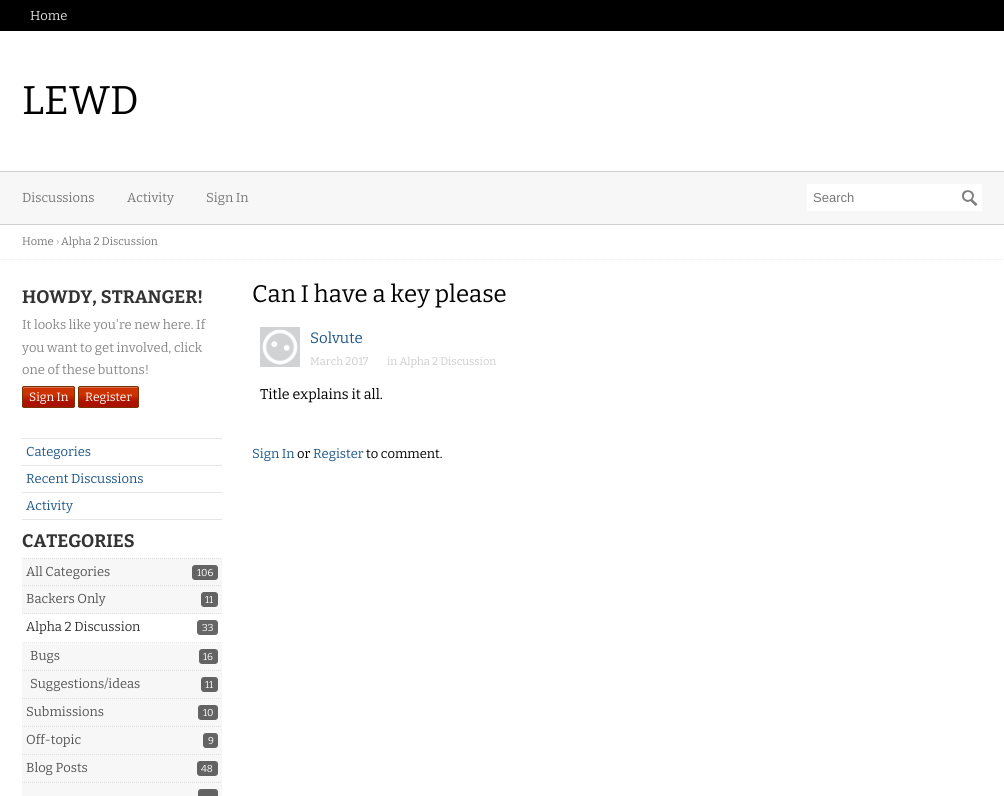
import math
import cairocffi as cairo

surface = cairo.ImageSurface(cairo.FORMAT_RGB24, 1004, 796)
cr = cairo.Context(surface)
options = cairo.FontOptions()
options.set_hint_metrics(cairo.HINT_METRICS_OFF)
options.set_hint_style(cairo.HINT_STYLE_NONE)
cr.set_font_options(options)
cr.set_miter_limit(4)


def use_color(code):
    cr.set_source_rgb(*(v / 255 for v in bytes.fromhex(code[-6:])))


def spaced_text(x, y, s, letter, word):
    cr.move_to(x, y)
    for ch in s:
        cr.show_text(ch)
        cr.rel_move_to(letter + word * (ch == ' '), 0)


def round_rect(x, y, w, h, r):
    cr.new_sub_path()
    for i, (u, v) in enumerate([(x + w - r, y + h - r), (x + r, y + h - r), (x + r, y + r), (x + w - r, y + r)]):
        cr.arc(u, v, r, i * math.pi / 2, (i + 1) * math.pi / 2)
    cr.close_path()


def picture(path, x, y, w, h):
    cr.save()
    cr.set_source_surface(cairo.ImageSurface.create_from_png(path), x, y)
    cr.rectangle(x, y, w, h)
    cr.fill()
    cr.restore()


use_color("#ffffff")
cr.paint()
use_color("#000000")
cr.rectangle(0, 0, 1004, 31)
cr.fill()
cr.select_font_face("Bitter")
cr.set_font_size(13)
use_color("#dddddd")
cr.move_to(30, 20)
cr.show_text("Home")
cr.set_font_size(40)
use_color("#000000")
cr.move_to(22, 114)
cr.show_text("LEWD")
use_color("#f7f7f7")
cr.rectangle(0, 172, 1004, 52)
cr.fill()
use_color("#d0d0d0")
cr.rectangle(0, 171, 1004, 1)
cr.fill()
cr.rectangle(0, 224, 1004, 1)
cr.fill()
cr.set_font_size(13)
use_color("#777777")
cr.move_to(22, 202)
cr.show_text("Discussions")
cr.move_to(127, 202)
cr.show_text("Activity")
cr.move_to(206, 202)
cr.show_text("Sign In")
use_color("#ffffff")
cr.rectangle(807, 184, 175, 27)
cr.fill()
cr.select_font_face("Liberation Sans")
use_color("#777777")
cr.move_to(813, 202)
cr.show_text("Search")
picture("img1.png", 962, 190, 16, 16)
cr.set_source_rgba(1, 1, 1, 0.3)
cr.new_path()
cr.move_to(964, 191)
cr.curve_to(966.5, 191, 977, 190, 978, 192.5)
cr.curve_to(978, 190, 976, 190, 974, 190)
cr.line_to(966, 190)
cr.curve_to(963, 190, 962, 190, 962, 193)
cr.curve_to(962, 192, 963, 191, 964, 191)
cr.close_path()
cr.fill()
cr.new_path()
cr.move_to(0, 259.5)
cr.line_to(1004, 259.5)
use_color("#eeeeee")
cr.set_line_width(1)
cr.set_dash([1, 1])
cr.stroke()
cr.select_font_face("Bitter")
cr.set_font_size(11)
use_color("#777777")
cr.move_to(22, 245)
cr.show_text("Home")
use_color("#aaaaaa")
cr.move_to(56, 245)
cr.show_text("›")
use_color("#777777")
cr.move_to(61, 245)
cr.show_text("Alpha 2 Discussion")
cr.select_font_face("Bitter", cairo.FONT_SLANT_NORMAL, cairo.FONT_WEIGHT_BOLD)
cr.set_font_size(18)
use_color("#333333")
spaced_text(22, 303, "HOWDY, STRANGER!", 0, 1)
cr.select_font_face("Bitter")
cr.set_font_size(13)
use_color("#888888")
cr.move_to(22, 329)
cr.show_text("It looks like you're new here. If")
cr.move_to(22, 352)
cr.show_text("you want to get involved, click")
cr.move_to(22, 374)
cr.show_text("one of these buttons!")
cr.save()
round_rect(22, 386, 53, 22, 2)
cr.clip()
gradient = cairo.LinearGradient(23, 407, 23, 387)
gradient.add_color_stop_rgba(0.25, 0.667, 0.067, 0, 1)
gradient.add_color_stop_rgba(0.63, 0.8, 0.2, 0, 1)
cr.set_source(gradient)
cr.rectangle(22, 387, 53, 20)
cr.fill()
cr.restore()
use_color("#db704d")
cr.set_fill_rule(cairo.FILL_RULE_EVEN_ODD)
cr.new_path()
cr.move_to(24, 388)
cr.line_to(73, 388)
cr.line_to(74, 389)
cr.curve_to(74, 385, 69, 387, 65, 387)
cr.line_to(32, 387)
cr.curve_to(26, 387, 23, 385, 23, 390)
cr.close_path()
cr.move_to(74, 406)
cr.line_to(74, 406)
cr.close_path()
cr.move_to(23, 406)
cr.line_to(23, 406)
cr.close_path()
cr.fill()
round_rect(22.5, 386.5, 52, 21, 1.5)
use_color("#763407")
cr.set_dash([])
cr.stroke()
cr.set_font_size(12)
use_color("#ffffff")
cr.move_to(29, 401)
cr.show_text("Sign In")
cr.save()
cr.set_fill_rule(cairo.FILL_RULE_WINDING)
round_rect(78, 386, 61, 22, 2)
cr.clip()
gradient = cairo.LinearGradient(79, 407, 79, 387)
gradient.add_color_stop_rgba(0.25, 0.667, 0.067, 0, 1)
gradient.add_color_stop_rgba(0.63, 0.8, 0.2, 0, 1)
cr.set_source(gradient)
cr.rectangle(78, 387, 61, 20)
cr.fill()
cr.restore()
cr.set_source_rgba(1, 1, 1, 0.3)
cr.set_fill_rule(cairo.FILL_RULE_WINDING)
cr.new_path()
cr.move_to(80, 388)
cr.line_to(137, 388)
cr.curve_to(138, 388, 138, 388, 138, 389)
cr.curve_to(138, 384, 131, 387, 128, 387)
cr.line_to(90, 387)
cr.curve_to(86, 387, 79, 384, 79, 389)
cr.curve_to(79, 388, 79, 388, 80, 388)
cr.close_path()
cr.fill()
round_rect(78.5, 386.5, 60, 21, 1.5)
use_color("#763407")
cr.stroke()
use_color("#ffffff")
cr.move_to(85, 401)
cr.show_text("Register")
use_color("#e6e6e6")
cr.rectangle(22, 438, 200, 1)
cr.fill()
cr.rectangle(22, 465, 200, 1)
cr.fill()
cr.set_font_size(13)
use_color("#1d5689")
cr.move_to(26, 456)
cr.show_text("Categories")
use_color("#e6e6e6")
cr.rectangle(22, 492, 200, 1)
cr.fill()
use_color("#1d5689")
cr.move_to(26, 483)
cr.show_text("Recent Discussions")
use_color("#e6e6e6")
cr.rectangle(22, 519, 200, 1)
cr.fill()
use_color("#1d5689")
cr.move_to(26, 510)
cr.show_text("Activity")
cr.select_font_face("Bitter", cairo.FONT_SLANT_NORMAL, cairo.FONT_WEIGHT_BOLD)
cr.set_font_size(18)
use_color("#333333")
cr.move_to(22, 547)
cr.show_text("CATEGORIES")
use_color("#f7f7f7")
cr.rectangle(22, 558, 200, 56)
cr.fill()
cr.new_path()
cr.move_to(22, 558.5)
cr.line_to(222, 558.5)
use_color("#dedede")
cr.set_dash([1, 1])
cr.stroke()
cr.new_path()
cr.move_to(22, 585.5)
cr.line_to(222, 585.5)
cr.stroke()
cr.select_font_face("Bitter")
cr.set_font_size(13)
use_color("#555555")
cr.move_to(26, 576)
cr.show_text("All Categories")
use_color("#636363")
round_rect(192, 565, 26, 15, 3)
cr.fill()
cr.set_font_size(10)
use_color("#ffffff")
cr.move_to(197, 576)
cr.show_text("106")
cr.new_path()
cr.move_to(22, 613.5)
cr.line_to(222, 613.5)
use_color("#dedede")
cr.stroke()
cr.set_font_size(13)
use_color("#555555")
cr.move_to(26, 603)
cr.show_text("Backers Only")
use_color("#636363")
round_rect(201, 592, 17, 15, 3)
cr.fill()
cr.set_font_size(10)
use_color("#ffffff")
cr.move_to(205, 603)
cr.show_text("11")
cr.new_path()
cr.move_to(22, 642.5)
cr.line_to(222, 642.5)
use_color("#e6e6e6")
cr.stroke()
cr.set_font_size(13)
use_color("#333333")
cr.move_to(26, 631)
cr.show_text("Alpha 2 Discussion")
use_color("#666666")
round_rect(197, 620, 21, 15, 3)
cr.fill()
cr.set_font_size(10)
use_color("#ffffff")
cr.move_to(202, 631)
cr.show_text("33")
use_color("#f7f7f7")
cr.rectangle(22, 643, 200, 153)
cr.fill()
cr.new_path()
cr.move_to(22, 670.5)
cr.line_to(222, 670.5)
use_color("#dedede")
cr.stroke()
cr.set_font_size(13)
use_color("#555555")
cr.move_to(30, 660)
cr.show_text("Bugs")
use_color("#636363")
round_rect(199, 649, 19, 15, 3)
cr.fill()
cr.set_font_size(10)
use_color("#ffffff")
cr.move_to(203, 660)
cr.show_text("16")
cr.new_path()
cr.move_to(22, 698.5)
cr.line_to(222, 698.5)
use_color("#dedede")
cr.stroke()
cr.set_font_size(13)
use_color("#555555")
cr.move_to(30, 688)
cr.show_text("Suggestions/ideas")
use_color("#636363")
round_rect(201, 677, 17, 15, 3)
cr.fill()
cr.set_font_size(10)
use_color("#ffffff")
cr.move_to(205, 688)
cr.show_text("11")
cr.new_path()
cr.move_to(22, 726.5)
cr.line_to(222, 726.5)
use_color("#dedede")
cr.stroke()
cr.set_font_size(13)
use_color("#555555")
cr.move_to(26, 716)
cr.show_text("Submissions")
use_color("#636363")
round_rect(198, 705, 20, 15, 3)
cr.fill()
cr.set_font_size(10)
use_color("#ffffff")
cr.move_to(203, 716)
cr.show_text("10")
cr.new_path()
cr.move_to(22, 754.5)
cr.line_to(222, 754.5)
use_color("#dedede")
cr.stroke()
cr.set_font_size(13)
use_color("#555555")
cr.move_to(26, 744)
cr.show_text("Off-topic")
use_color("#636363")
round_rect(203, 733, 15, 15, 3)
cr.fill()
cr.set_font_size(10)
use_color("#ffffff")
cr.move_to(208, 744)
cr.show_text("9")
cr.new_path()
cr.move_to(22, 782.5)
cr.line_to(222, 782.5)
use_color("#dedede")
cr.stroke()
cr.set_font_size(13)
use_color("#555555")
cr.move_to(26, 772)
cr.show_text("Blog Posts")
use_color("#636363")
round_rect(197, 761, 21, 15, 3)
cr.fill()
cr.set_font_size(10)
use_color("#ffffff")
cr.move_to(201, 772)
cr.show_text("48")
use_color("#636363")
round_rect(198, 789, 20, 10, 3)
cr.fill()
cr.set_font_size(24)
use_color("#000000")
cr.move_to(252, 302)
cr.show_text("Can I have a key please")
picture("img2.png", 260, 327, 40, 40)
cr.set_font_size(15)
use_color("#1d5689")
cr.move_to(310, 343)
cr.show_text("Solvute")
cr.set_font_size(11)
use_color("#cccccc")
cr.move_to(310, 365)
cr.show_text("March 2017")
cr.move_to(387, 365)
cr.show_text("in Alpha 2 Discussion")
cr.set_font_size(14.25)
use_color("#000000")
cr.move_to(260, 399)
cr.show_text("Title explains it all.")
cr.set_font_size(13)
use_color("#1d5689")
cr.move_to(252, 458)
cr.show_text("Sign In")
use_color("#000000")
cr.move_to(297, 458)
cr.show_text("or")
use_color("#1d5689")
cr.move_to(313, 458)
cr.show_text("Register")
use_color("#000000")
cr.move_to(366, 458)
cr.show_text("to comment.")
surface.write_to_png("result.png")
